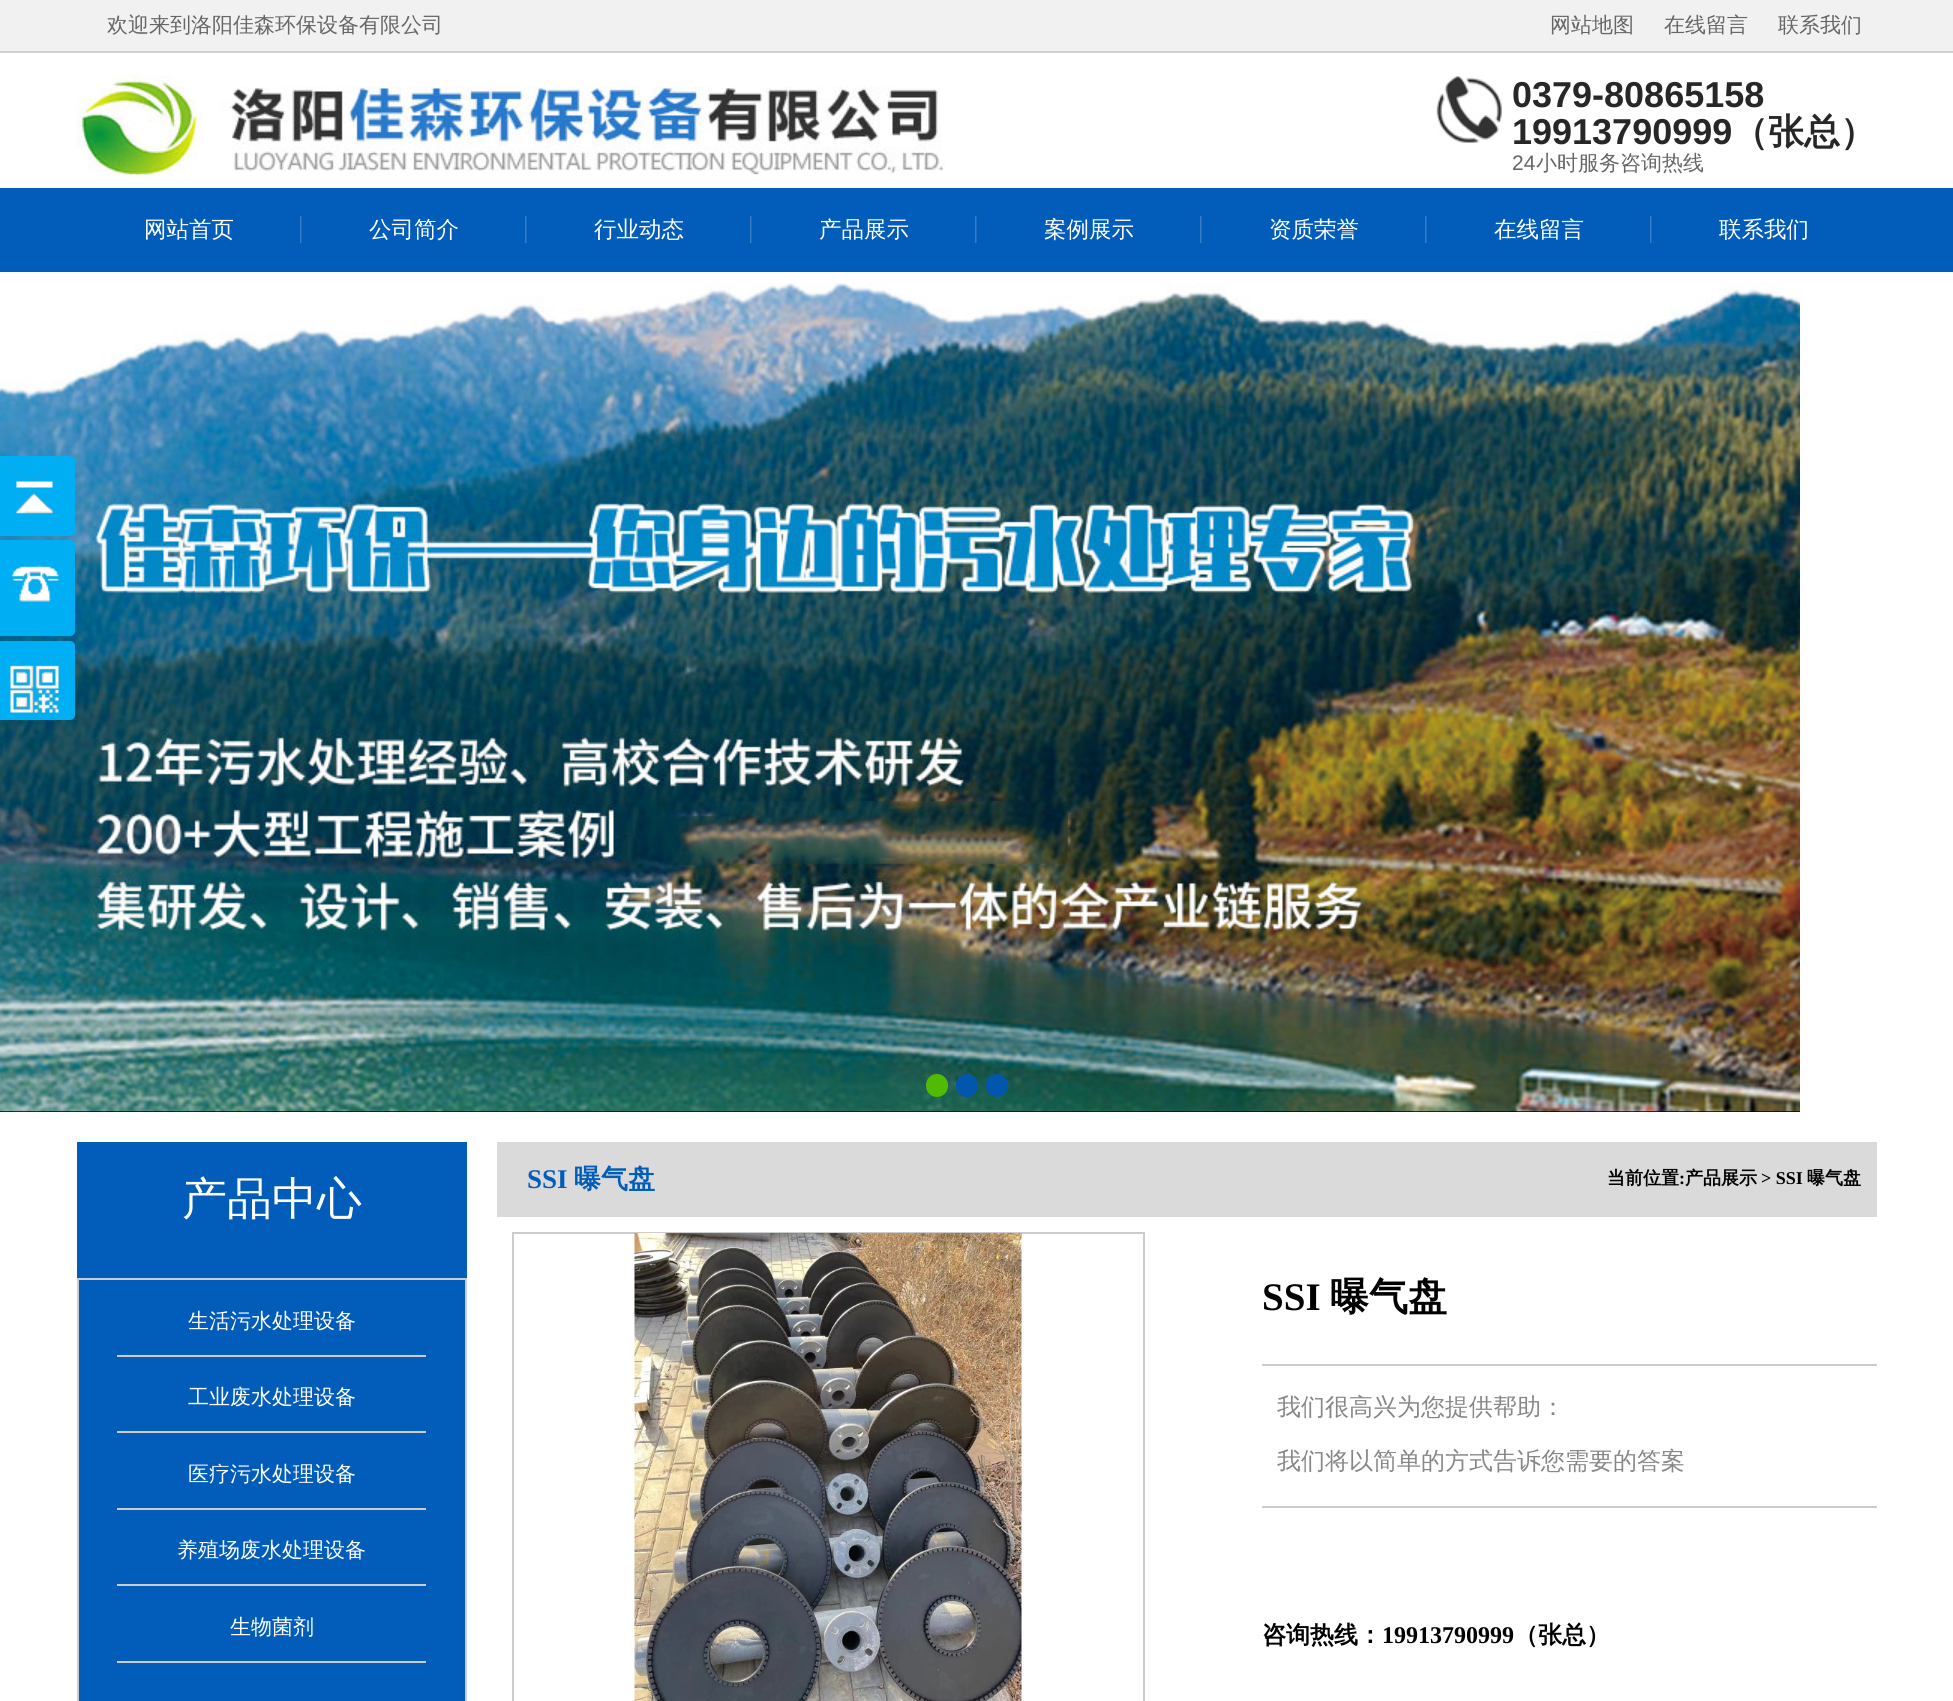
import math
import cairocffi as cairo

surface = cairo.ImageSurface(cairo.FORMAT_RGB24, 1953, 1701)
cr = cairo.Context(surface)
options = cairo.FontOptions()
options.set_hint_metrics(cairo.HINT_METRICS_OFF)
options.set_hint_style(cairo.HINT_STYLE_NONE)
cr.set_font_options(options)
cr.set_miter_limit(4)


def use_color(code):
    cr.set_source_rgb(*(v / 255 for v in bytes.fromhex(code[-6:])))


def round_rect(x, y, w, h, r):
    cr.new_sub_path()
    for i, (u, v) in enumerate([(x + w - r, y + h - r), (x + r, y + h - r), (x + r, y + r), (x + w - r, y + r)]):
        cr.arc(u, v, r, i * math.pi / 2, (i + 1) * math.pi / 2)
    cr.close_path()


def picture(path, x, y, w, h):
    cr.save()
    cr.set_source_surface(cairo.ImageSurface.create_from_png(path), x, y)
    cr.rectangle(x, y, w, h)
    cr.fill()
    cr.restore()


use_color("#ffffff")
cr.paint()
use_color("#f1f1f1")
cr.rectangle(0, 0, 1953, 51)
cr.fill()
use_color("#d0d0d0")
cr.rectangle(0, 51, 1953, 2)
cr.fill()
cr.select_font_face("WenQuanYi Zen Hei Medium")
cr.set_font_size(21)
use_color("#666666")
cr.move_to(107, 32)
cr.show_text("欢迎来到洛阳佳森环保设备有限公司")
cr.move_to(1550, 32)
cr.show_text("网站地图")
cr.move_to(1664, 32)
cr.show_text("在线留言")
cr.move_to(1778, 32)
cr.show_text("联系我们")
picture("img1.png", 76, 75, 869, 103)
picture("img2.png", 1436, 76, 66, 67)
cr.select_font_face("Liberation Sans", cairo.FONT_SLANT_NORMAL, cairo.FONT_WEIGHT_BOLD)
cr.set_font_size(36)
use_color("#272727")
cr.move_to(1512, 107)
cr.show_text("0379-80865158")
cr.move_to(1512, 144)
cr.show_text("19913790999")
cr.select_font_face("WenQuanYi Zen Hei", cairo.FONT_SLANT_NORMAL, cairo.FONT_WEIGHT_BOLD)
cr.move_to(1732, 144)
cr.show_text("（张总）")
cr.select_font_face("Liberation Sans")
cr.set_font_size(21)
use_color("#666666")
cr.move_to(1512, 170)
cr.show_text("24")
cr.select_font_face("WenQuanYi Zen Hei Medium")
cr.move_to(1536, 170)
cr.show_text("小时服务咨询热线")
use_color("#015db9")
cr.rectangle(0, 188, 1953, 84)
cr.fill()
picture("img3.png", 300, 216, 2, 27)
cr.set_font_size(22.5)
use_color("#ffffff")
cr.move_to(144, 237)
cr.show_text("网站首页")
picture("img3.png", 525, 216, 2, 27)
cr.move_to(369, 237)
cr.show_text("公司简介")
picture("img3.png", 750, 216, 2, 27)
cr.move_to(594, 237)
cr.show_text("行业动态")
picture("img3.png", 975, 216, 2, 27)
cr.move_to(819, 237)
cr.show_text("产品展示")
picture("img3.png", 1200, 216, 2, 27)
cr.move_to(1044, 237)
cr.show_text("案例展示")
picture("img3.png", 1425, 216, 2, 27)
cr.move_to(1269, 237)
cr.show_text("资质荣誉")
picture("img3.png", 1650, 216, 2, 27)
cr.move_to(1494, 237)
cr.show_text("在线留言")
cr.move_to(1719, 237)
cr.show_text("联系我们")
use_color("#000000")
cr.rectangle(0, 1111, 1800, 1)
cr.fill()
picture("img4.png", 0, 272, 1800, 840)
use_color("#51ba05")
round_rect(926, 1074, 22, 23, 11)
cr.fill()
use_color("#0256ac")
round_rect(956, 1074, 22, 23, 11)
cr.fill()
round_rect(986, 1074, 22, 23, 11)
cr.fill()
use_color("#00aef3")
round_rect(-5, 456, 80, 80, 5)
cr.fill()
picture("img5.png", 0, 457, 60, 57)
round_rect(-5, 540, 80, 96, 5)
cr.fill()
picture("img6.png", 11, 565, 48, 37)
round_rect(-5, 641, 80, 79, 5)
cr.fill()
picture("img7.png", 10, 665, 49, 48)
use_color("#015db9")
cr.rectangle(77, 1142, 390, 136)
cr.fill()
cr.set_font_size(45)
use_color("#ffffff")
cr.move_to(182, 1214)
cr.show_text("产品中心")
use_color("#015db9")
cr.rectangle(78, 1279, 388, 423)
cr.fill_preserve()
use_color("#cccccc")
cr.stroke()
cr.rectangle(117, 1355, 309, 2)
cr.fill()
cr.set_font_size(21)
use_color("#ffffff")
cr.move_to(188, 1328)
cr.show_text("生活污水处理设备")
use_color("#cccccc")
cr.rectangle(117, 1431, 309, 2)
cr.fill()
use_color("#ffffff")
cr.move_to(188, 1404)
cr.show_text("工业废水处理设备")
use_color("#cccccc")
cr.rectangle(117, 1508, 309, 2)
cr.fill()
use_color("#ffffff")
cr.move_to(188, 1481)
cr.show_text("医疗污水处理设备")
use_color("#cccccc")
cr.rectangle(117, 1584, 309, 2)
cr.fill()
use_color("#ffffff")
cr.move_to(177, 1557)
cr.show_text("养殖场废水处理设备")
use_color("#cccccc")
cr.rectangle(117, 1661, 309, 2)
cr.fill()
use_color("#ffffff")
cr.move_to(230, 1634)
cr.show_text("生物菌剂")
use_color("#dadada")
cr.rectangle(497, 1142, 1380, 75)
cr.fill()
cr.select_font_face("Liberation Serif", cairo.FONT_SLANT_NORMAL, cairo.FONT_WEIGHT_BOLD)
cr.set_font_size(27)
use_color("#015db9")
cr.move_to(527, 1188)
cr.show_text("SSI")
cr.select_font_face("WenQuanYi Zen Hei", cairo.FONT_SLANT_NORMAL, cairo.FONT_WEIGHT_BOLD)
cr.move_to(574, 1188)
cr.show_text("曝气盘")
cr.set_font_size(18)
use_color("#000000")
cr.move_to(1607, 1184)
cr.show_text("当前位置")
cr.select_font_face("Liberation Serif", cairo.FONT_SLANT_NORMAL, cairo.FONT_WEIGHT_BOLD)
cr.move_to(1679, 1184)
cr.show_text(":")
cr.select_font_face("WenQuanYi Zen Hei", cairo.FONT_SLANT_NORMAL, cairo.FONT_WEIGHT_BOLD)
cr.move_to(1685, 1184)
cr.show_text("产品展示")
cr.select_font_face("Liberation Serif", cairo.FONT_SLANT_NORMAL, cairo.FONT_WEIGHT_BOLD)
cr.move_to(1761, 1184)
cr.show_text("> SSI")
cr.select_font_face("WenQuanYi Zen Hei", cairo.FONT_SLANT_NORMAL, cairo.FONT_WEIGHT_BOLD)
cr.move_to(1807, 1184)
cr.show_text("曝气盘")
cr.rectangle(513, 1233, 631, 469)
use_color("#cccccc")
cr.stroke()
picture("img8.png", 634, 1233, 388, 468)
cr.select_font_face("Liberation Serif", cairo.FONT_SLANT_NORMAL, cairo.FONT_WEIGHT_BOLD)
cr.set_font_size(39)
use_color("#000000")
cr.move_to(1262, 1310)
cr.show_text("SSI")
cr.select_font_face("WenQuanYi Zen Hei", cairo.FONT_SLANT_NORMAL, cairo.FONT_WEIGHT_BOLD)
cr.move_to(1330, 1310)
cr.show_text("曝气盘")
use_color("#cccccc")
cr.rectangle(1262, 1364, 615, 2)
cr.fill()
cr.rectangle(1262, 1506, 615, 2)
cr.fill()
cr.select_font_face("WenQuanYi Zen Hei Medium")
cr.set_font_size(24)
use_color("#878787")
cr.move_to(1277, 1415)
cr.show_text("我们很高兴为您提供帮助：")
cr.move_to(1277, 1469)
cr.show_text("我们将以简单的方式告诉您需要的答案")
cr.select_font_face("WenQuanYi Zen Hei", cairo.FONT_SLANT_NORMAL, cairo.FONT_WEIGHT_BOLD)
use_color("#000000")
cr.move_to(1262, 1643)
cr.show_text("咨询热线：")
cr.select_font_face("Liberation Serif", cairo.FONT_SLANT_NORMAL, cairo.FONT_WEIGHT_BOLD)
cr.move_to(1382, 1643)
cr.show_text("19913790999")
cr.select_font_face("WenQuanYi Zen Hei", cairo.FONT_SLANT_NORMAL, cairo.FONT_WEIGHT_BOLD)
cr.move_to(1514, 1643)
cr.show_text("（张总）")
surface.write_to_png("result.png")
